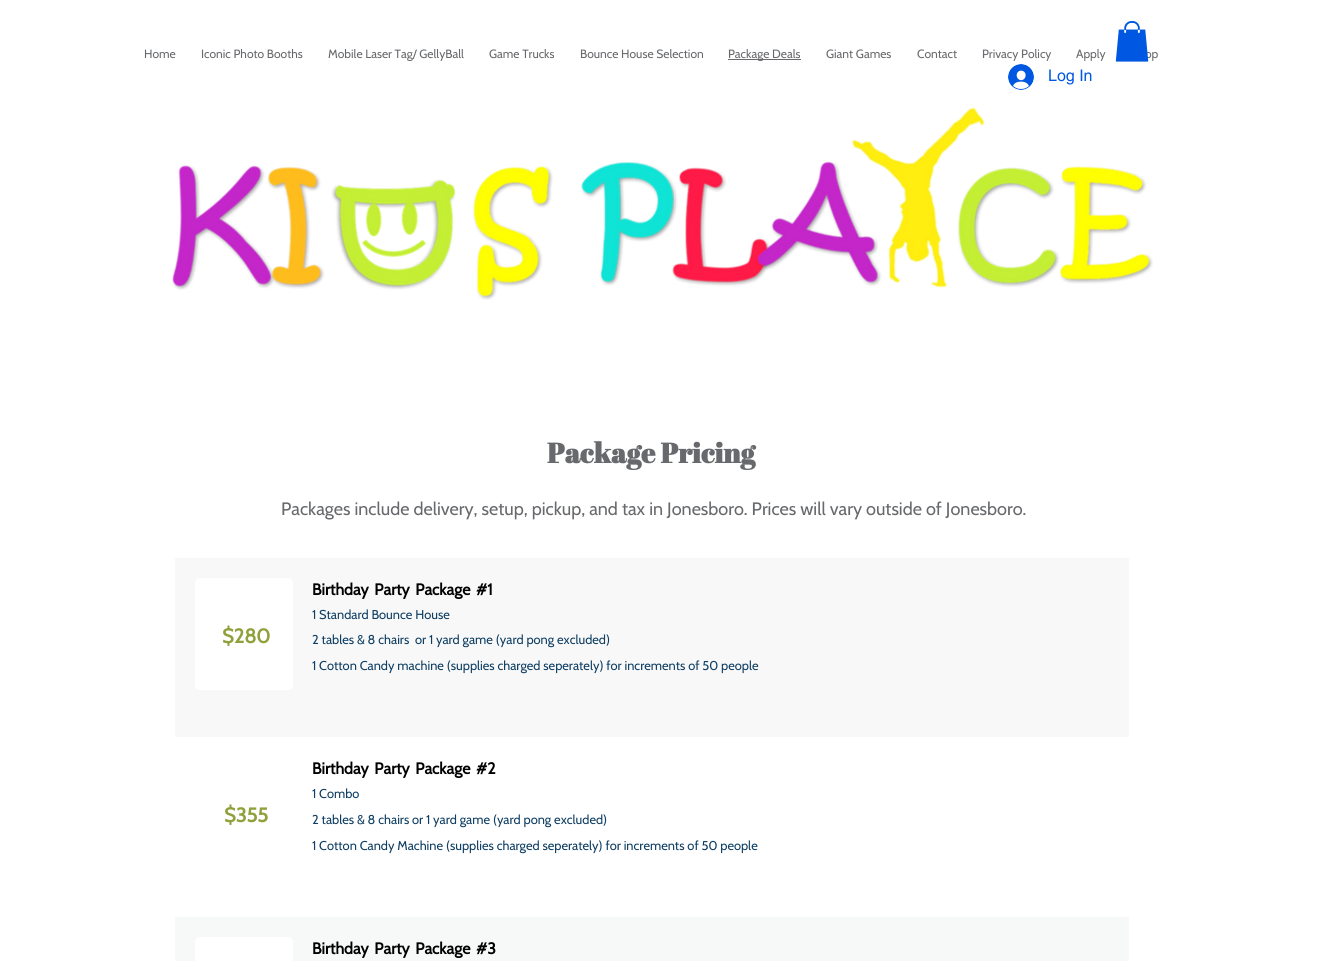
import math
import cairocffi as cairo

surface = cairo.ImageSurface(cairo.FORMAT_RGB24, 1317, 961)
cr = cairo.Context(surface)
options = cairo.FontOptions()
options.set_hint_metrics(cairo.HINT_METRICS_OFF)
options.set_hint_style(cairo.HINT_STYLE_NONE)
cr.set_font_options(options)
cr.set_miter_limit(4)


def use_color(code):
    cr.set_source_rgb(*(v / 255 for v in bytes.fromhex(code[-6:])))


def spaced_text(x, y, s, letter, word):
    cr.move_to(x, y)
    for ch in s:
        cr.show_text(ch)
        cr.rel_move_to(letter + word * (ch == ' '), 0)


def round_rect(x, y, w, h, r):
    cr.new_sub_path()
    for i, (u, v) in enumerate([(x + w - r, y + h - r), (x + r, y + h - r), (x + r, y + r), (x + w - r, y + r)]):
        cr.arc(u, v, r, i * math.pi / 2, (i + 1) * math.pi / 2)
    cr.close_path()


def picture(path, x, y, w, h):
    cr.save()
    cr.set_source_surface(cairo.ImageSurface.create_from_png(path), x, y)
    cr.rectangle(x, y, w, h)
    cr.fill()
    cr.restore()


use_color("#ffffff")
cr.paint()
cr.select_font_face("Cabin")
cr.set_font_size(12)
use_color("#67696c")
cr.move_to(1145, 58)
cr.show_text("op")
picture("img1.png", 1115, 21, 34, 41)
cr.move_to(144, 58)
cr.show_text("Home")
cr.move_to(201, 58)
cr.show_text("Iconic Photo Booths")
cr.move_to(328, 58)
cr.show_text("Mobile Laser Tag/ GellyBall")
cr.move_to(489, 58)
cr.show_text("Game Trucks")
cr.move_to(580, 58)
cr.show_text("Bounce House Selection")
cr.rectangle(728, 59, 73, 1)
cr.fill()
cr.move_to(728, 58)
cr.show_text("Package Deals")
cr.move_to(826, 58)
cr.show_text("Giant Games")
cr.move_to(917, 58)
cr.show_text("Contact")
cr.move_to(982, 58)
cr.show_text("Privacy Policy")
cr.move_to(1076, 58)
cr.show_text("Apply")
picture("img2.png", 1008, 64, 26, 26)
cr.select_font_face("helvetica")
cr.set_font_size(16)
use_color("#0057e1")
cr.move_to(1048, 81)
cr.show_text("Log In")
picture("img3.png", 172, 107, 981, 193)
cr.select_font_face("Abril Fatface", cairo.FONT_SLANT_NORMAL, cairo.FONT_WEIGHT_BOLD)
cr.set_font_size(28)
use_color("#67696c")
cr.move_to(547, 463)
cr.show_text("Package Pricing")
cr.select_font_face("Cabin")
cr.set_font_size(18)
cr.move_to(281, 515)
cr.show_text("Packages include delivery, setup, pickup, and tax in Jonesboro. Prices will vary outside of Jonesboro.")
use_color("#f8f8f8")
cr.rectangle(175, 558, 954, 179)
cr.fill()
use_color("#ffffff")
round_rect(195, 578, 98, 112, 5)
cr.fill()
cr.select_font_face("Cabin", cairo.FONT_SLANT_NORMAL, cairo.FONT_WEIGHT_BOLD)
cr.set_font_size(20)
use_color("#8fa13b")
cr.move_to(222, 643)
cr.show_text("$280")
cr.set_font_size(16)
use_color("#000000")
spaced_text(312, 595, "Birthday Party Package #1", 0, 2)
cr.select_font_face("Cabin")
cr.set_font_size(12.8)
use_color("#0e3e63")
cr.move_to(312, 619)
cr.show_text("1 Standard Bounce House")
cr.move_to(312, 644)
cr.show_text("2 tables & 8 chairs  or 1 yard game (yard pong excluded)")
cr.move_to(312, 670)
cr.show_text("1 Cotton Candy machine (supplies charged seperately) for increments of 50 people")
cr.select_font_face("Cabin", cairo.FONT_SLANT_NORMAL, cairo.FONT_WEIGHT_BOLD)
cr.set_font_size(20)
use_color("#8fa13b")
cr.move_to(224, 822)
cr.show_text("$355")
cr.set_font_size(16)
use_color("#000000")
spaced_text(312, 774, "Birthday Party Package #2", 0, 2)
cr.select_font_face("Cabin")
cr.set_font_size(12.8)
use_color("#0e3e63")
cr.move_to(312, 798)
cr.show_text("1 Combo")
cr.move_to(312, 824)
cr.show_text("2 tables & 8 chairs or 1 yard game (yard pong excluded)")
cr.move_to(312, 850)
cr.show_text("1 Cotton Candy Machine (supplies charged seperately) for increments of 50 people")
use_color("#f7f8f8")
cr.rectangle(175, 917, 954, 44)
cr.fill()
use_color("#ffffff")
round_rect(195, 937, 98, 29, 5)
cr.fill()
cr.select_font_face("Cabin", cairo.FONT_SLANT_NORMAL, cairo.FONT_WEIGHT_BOLD)
cr.set_font_size(16)
use_color("#000000")
spaced_text(312, 954, "Birthday Party Package #3", 0, 2)
surface.write_to_png("result.png")
